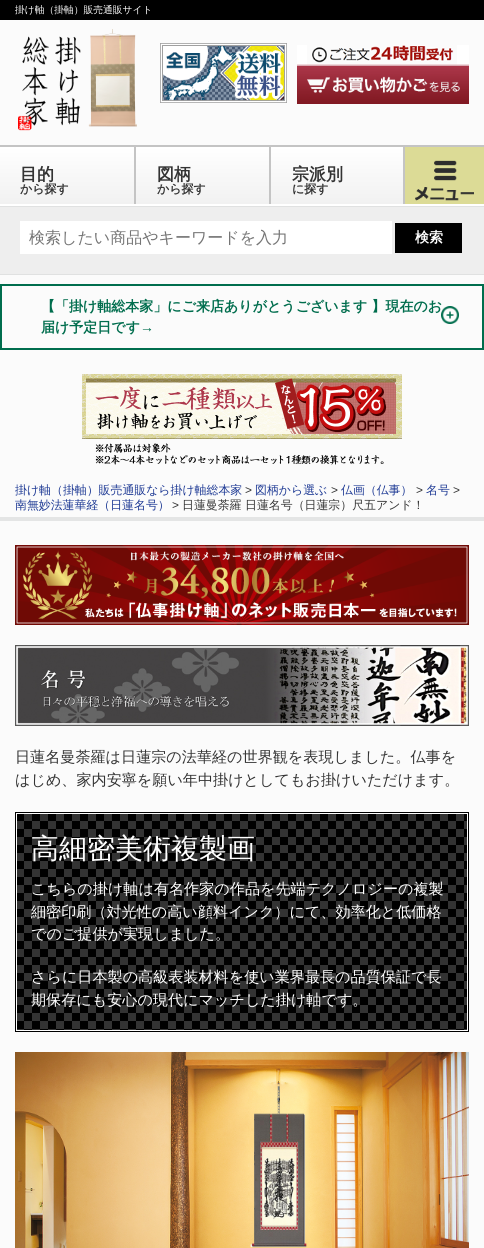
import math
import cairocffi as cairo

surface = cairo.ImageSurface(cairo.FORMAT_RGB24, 484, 1248)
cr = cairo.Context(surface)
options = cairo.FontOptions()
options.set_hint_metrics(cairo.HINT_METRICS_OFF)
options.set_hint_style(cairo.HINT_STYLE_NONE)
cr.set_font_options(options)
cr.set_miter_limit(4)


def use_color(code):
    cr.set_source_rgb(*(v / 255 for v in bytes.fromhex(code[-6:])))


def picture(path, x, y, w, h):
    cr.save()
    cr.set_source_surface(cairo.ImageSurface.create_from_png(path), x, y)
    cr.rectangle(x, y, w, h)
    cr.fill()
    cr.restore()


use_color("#fbfbfb")
cr.paint()
use_color("#000000")
cr.rectangle(0, 0, 484, 20)
cr.fill()
cr.select_font_face("WenQuanYi Zen Hei Medium")
cr.set_font_size(9.75)
use_color("#ffffff")
cr.move_to(15, 13)
cr.show_text("掛け軸（掛軸）販売通販サイト")
picture("img1.png", 18, 29, 119, 102)
picture("img2.png", 160, 43, 127, 60)
picture("img3.png", 297, 45, 172, 59)
cr.rectangle(0, 204, 484, 2)
cr.fill()
gradient = cairo.LinearGradient(242, 147, 242, 204)
gradient.add_color_stop_rgba(0, 1, 1, 1, 1)
gradient.add_color_stop_rgba(1, 0.945, 0.945, 0.945, 1)
cr.set_source(gradient)
cr.rectangle(0, 147, 403, 57)
cr.fill()
use_color("#c4c4c4")
cr.rectangle(0, 145, 484, 2)
cr.fill()
cr.select_font_face("WenQuanYi Zen Hei", cairo.FONT_SLANT_NORMAL, cairo.FONT_WEIGHT_BOLD)
cr.set_font_size(17)
use_color("#333333")
cr.move_to(20, 180)
cr.show_text("目的")
cr.set_font_size(12)
cr.move_to(20, 193)
cr.show_text("から探す")
use_color("#c4c4c4")
cr.rectangle(134, 147, 2, 57)
cr.fill()
cr.set_font_size(17)
use_color("#333333")
cr.move_to(157, 180)
cr.show_text("図柄")
cr.set_font_size(12)
cr.move_to(157, 193)
cr.show_text("から探す")
use_color("#c4c4c4")
cr.rectangle(269, 147, 2, 57)
cr.fill()
cr.set_font_size(17)
use_color("#333333")
cr.move_to(292, 180)
cr.show_text("宗派別")
cr.set_font_size(12)
cr.move_to(292, 193)
cr.show_text("に探す")
use_color("#dcdb96")
cr.rectangle(405, 147, 79, 57)
cr.fill()
use_color("#c4c4c4")
cr.rectangle(403, 147, 2, 57)
cr.fill()
picture("img4.png", 415, 160, 59, 41)
use_color("#eeeeee")
cr.rectangle(0, 207, 484, 67)
cr.fill()
use_color("#e0e1e1")
cr.rectangle(0, 206, 484, 1)
cr.fill()
cr.rectangle(0, 274, 484, 1)
cr.fill()
use_color("#ffffff")
cr.rectangle(20, 221, 372, 33)
cr.fill()
cr.select_font_face("WenQuanYi Zen Hei Medium")
cr.set_font_size(16)
use_color("#757575")
cr.move_to(29, 243)
cr.show_text("検索したい商品やキーワードを入力")
use_color("#000000")
cr.rectangle(395, 223, 67, 30)
cr.fill()
cr.select_font_face("WenQuanYi Zen Hei", cairo.FONT_SLANT_NORMAL, cairo.FONT_WEIGHT_BOLD)
cr.set_font_size(14)
use_color("#ffffff")
cr.move_to(415, 242)
cr.show_text("検索")
cr.rectangle(1, 285, 482, 64)
use_color("#006d4d")
cr.stroke()
picture("img5.png", 441, 306, 18, 18)
cr.move_to(41, 311)
cr.show_text("【「掛け軸総本家」にご来店ありがとうございます 】現在のお")
cr.move_to(41, 332)
cr.show_text("届け予定日です")
cr.select_font_face("Liberation Sans", cairo.FONT_SLANT_NORMAL, cairo.FONT_WEIGHT_BOLD)
cr.move_to(140, 332)
cr.show_text("→")
picture("img6.png", 82, 374, 320, 91)
use_color("#e4e5e5")
cr.rectangle(0, 517, 484, 4)
cr.fill()
cr.select_font_face("WenQuanYi Zen Hei Medium")
cr.set_font_size(11.9)
use_color("#1d3994")
cr.move_to(15, 494)
cr.show_text("掛け軸（掛軸）販売通販なら掛け軸総本家")
cr.select_font_face("Liberation Sans")
use_color("#333333")
cr.move_to(245, 494)
cr.show_text(">")
cr.select_font_face("WenQuanYi Zen Hei Medium")
use_color("#1d3994")
cr.move_to(255, 494)
cr.show_text("図柄から選ぶ")
cr.select_font_face("Liberation Sans")
use_color("#333333")
cr.move_to(331, 494)
cr.show_text(">")
cr.select_font_face("WenQuanYi Zen Hei Medium")
use_color("#1d3994")
cr.move_to(341, 494)
cr.show_text("仏画（仏事）")
cr.select_font_face("Liberation Sans")
use_color("#333333")
cr.move_to(416, 494)
cr.show_text(">")
cr.select_font_face("WenQuanYi Zen Hei Medium")
use_color("#1d3994")
cr.move_to(426, 494)
cr.show_text("名号")
cr.select_font_face("Liberation Sans")
use_color("#333333")
cr.move_to(453, 494)
cr.show_text(">")
cr.select_font_face("WenQuanYi Zen Hei Medium")
use_color("#1d3994")
cr.move_to(15, 509)
cr.show_text("南無妙法蓮華経（日蓮名号）")
cr.select_font_face("Liberation Sans")
use_color("#333333")
cr.move_to(172, 509)
cr.show_text(">")
cr.select_font_face("WenQuanYi Zen Hei Medium")
cr.move_to(182, 509)
cr.show_text("日蓮曼荼羅 日蓮名号（日蓮宗）尺五アンド！")
picture("img7.png", 15, 545, 454, 80)
picture("img8.png", 15, 645, 454, 81)
cr.set_font_size(15.1)
cr.move_to(15, 762)
cr.show_text("日蓮名曼荼羅は日蓮宗の法華経の世界観を表現しました。仏事を")
cr.move_to(15, 785)
cr.show_text("はじめ、家内安寧を願い年中掛けとしてもお掛けいただけます。")
picture("img9.png", 17, 814, 450, 216)
cr.rectangle(15.5, 812.5, 453, 219)
use_color("#000000")
cr.set_line_width(1)
cr.stroke()
cr.rectangle(16.5, 813.5, 451, 217)
use_color("#ffffff")
cr.stroke()
cr.set_font_size(28)
cr.move_to(31, 858)
cr.show_text("高細密美術複製画")
cr.set_font_size(15.1)
cr.move_to(31, 894)
cr.show_text("こちらの掛け軸は有名作家の作品を先端テクノロジーの複製")
cr.move_to(31, 917)
cr.show_text("細密印刷（対光性の高い顔料インク）にて、効率化と低価格")
cr.move_to(31, 939)
cr.show_text("でのご提供が実現しました。")
cr.move_to(31, 982)
cr.show_text("さらに日本製の高級表装材料を使い業界最長の品質保証で長")
cr.move_to(31, 1005)
cr.show_text("期保存にも安心の現代にマッチした掛け軸です。")
picture("img10.png", 15, 1052, 454, 196)
surface.write_to_png("result.png")
